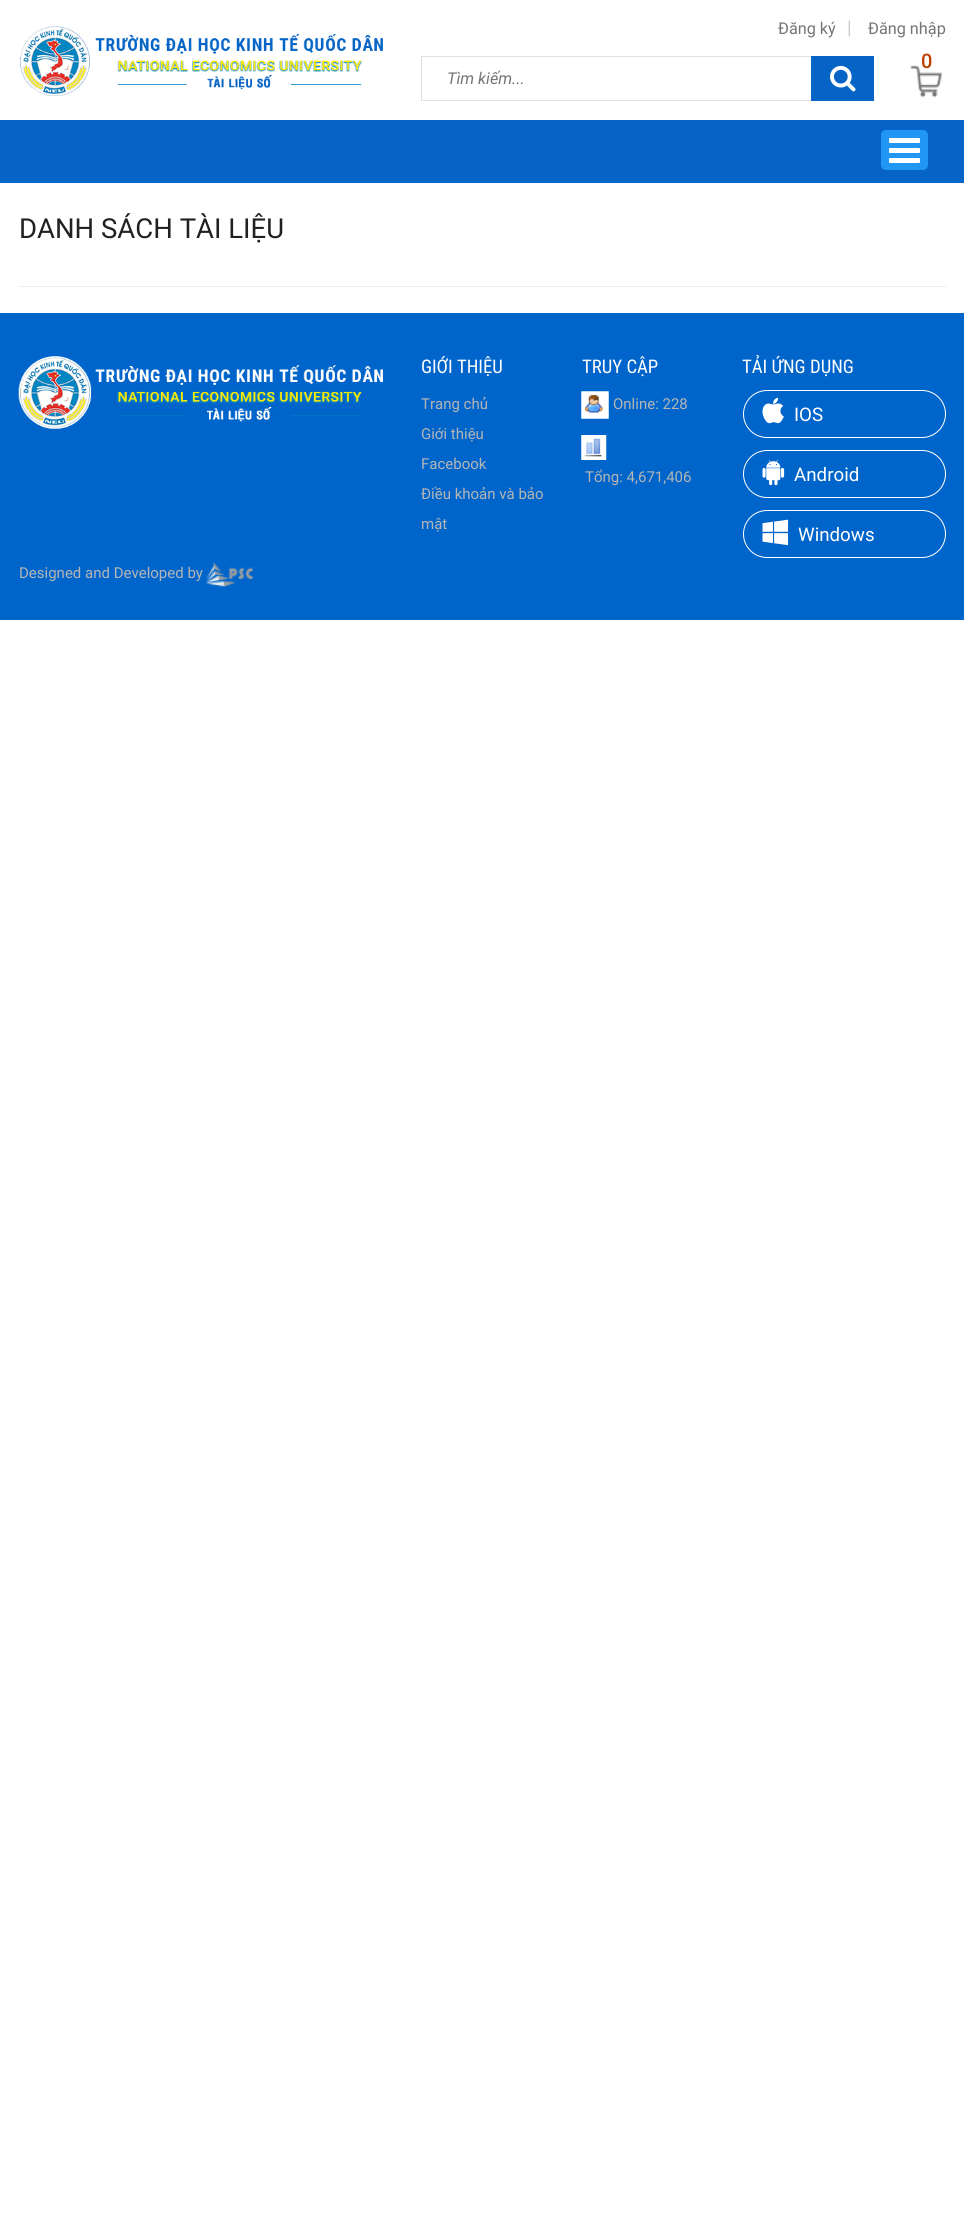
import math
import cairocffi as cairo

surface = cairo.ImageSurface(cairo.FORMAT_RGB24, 964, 2218)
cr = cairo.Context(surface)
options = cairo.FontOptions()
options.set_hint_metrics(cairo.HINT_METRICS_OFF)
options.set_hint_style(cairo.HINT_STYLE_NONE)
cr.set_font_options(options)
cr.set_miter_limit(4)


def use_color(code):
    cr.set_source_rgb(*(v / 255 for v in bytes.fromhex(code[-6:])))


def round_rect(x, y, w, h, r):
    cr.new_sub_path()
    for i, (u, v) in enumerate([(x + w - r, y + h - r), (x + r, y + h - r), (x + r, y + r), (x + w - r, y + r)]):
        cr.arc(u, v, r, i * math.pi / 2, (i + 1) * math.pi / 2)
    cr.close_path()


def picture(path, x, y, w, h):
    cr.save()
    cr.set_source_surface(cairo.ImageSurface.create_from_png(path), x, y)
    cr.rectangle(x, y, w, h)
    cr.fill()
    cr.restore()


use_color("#ffffff")
cr.paint()
cr.select_font_face("Roboto")
cr.set_font_size(16.25)
use_color("#757575")
cr.move_to(778, 34)
cr.show_text("Đăng ký")
cr.set_font_size(18.75)
use_color("#cccccc")
cr.move_to(847, 34)
cr.show_text("|")
cr.set_font_size(16.25)
use_color("#757575")
cr.move_to(868, 34)
cr.show_text("Đăng nhập")
picture("img1.png", 20, 26, 363, 70)
picture("img2.png", 910, 65, 33, 33)
cr.select_font_face("Roboto Medium")
cr.set_font_size(20)
use_color("#bf3f00")
cr.move_to(921, 68)
cr.show_text("0")
cr.rectangle(421.5, 56.5, 399, 44)
use_color("#e1e1e1")
cr.set_line_width(1)
cr.stroke()
cr.select_font_face("Roboto", cairo.FONT_SLANT_ITALIC)
cr.set_font_size(16.25)
use_color("#757575")
cr.move_to(447, 84)
cr.show_text("Tìm kiếm...")
use_color("#0564c5")
cr.rectangle(811, 56, 63, 45)
cr.fill()
picture("img3.png", 830, 65, 26, 27)
cr.rectangle(0, 120, 964, 63)
cr.fill()
use_color("#2196f3")
round_rect(881, 130, 47, 40, 5)
cr.fill()
use_color("#ffffff")
round_rect(889, 138, 31, 5, 1)
cr.fill()
round_rect(889, 148, 31, 5, 1)
cr.fill()
round_rect(889, 158, 31, 5, 1)
cr.fill()
cr.select_font_face("Roboto")
cr.set_font_size(27.5)
use_color("#212121")
cr.move_to(19, 238)
cr.show_text("DANH SÁCH TÀI LIỆU")
use_color("#eeeeee")
cr.rectangle(19, 286, 927, 1)
cr.fill()
use_color("#0065ca")
cr.rectangle(0, 313, 964, 307)
cr.fill()
picture("img4.png", 18, 356, 365, 73)
cr.select_font_face("Roboto Condensed")
cr.set_font_size(18.75)
use_color("#ffffff")
cr.move_to(421, 373)
cr.show_text("GIỚI THIỆU")
cr.select_font_face("Roboto")
cr.set_font_size(15)
use_color("#b5b5b5")
cr.move_to(421, 409)
cr.show_text("Trang chủ")
cr.move_to(421, 439)
cr.show_text("Giới thiệu")
cr.move_to(421, 469)
cr.show_text("Facebook")
cr.move_to(421, 499)
cr.show_text("Điều khoản và bảo")
cr.move_to(421, 529)
cr.show_text("mật")
cr.select_font_face("Roboto Condensed")
cr.set_font_size(18.75)
use_color("#ffffff")
cr.move_to(582, 373)
cr.show_text("TRUY CẬP")
picture("img5.png", 581, 391, 28, 28)
cr.select_font_face("Roboto")
cr.set_font_size(15)
use_color("#b5b5b5")
cr.move_to(613, 409)
cr.show_text("Online: 228")
picture("img6.png", 581, 435, 26, 25)
cr.move_to(585, 482)
cr.show_text("Tổng: 4,671,406")
cr.select_font_face("Roboto Condensed")
cr.set_font_size(18.75)
use_color("#ffffff")
cr.move_to(742, 373)
cr.show_text("TẢI ỨNG DỤNG")
round_rect(743.5, 390.5, 202, 47, 23.5)
cr.stroke()
picture("img7.png", 762, 397, 22, 27)
cr.select_font_face("Roboto")
cr.move_to(794, 421)
cr.show_text("IOS")
round_rect(743.5, 450.5, 202, 47, 23.5)
cr.stroke()
picture("img8.png", 762, 459, 23, 27)
cr.move_to(794, 481)
cr.show_text("Android")
round_rect(743.5, 510.5, 202, 47, 23.5)
cr.stroke()
picture("img9.png", 762, 519, 27, 27)
cr.move_to(798, 541)
cr.show_text("Windows")
cr.set_font_size(15)
use_color("#b5b5b5")
cr.move_to(19, 578)
cr.show_text("Designed and Developed by")
picture("img10.png", 206, 562, 47, 25)
surface.write_to_png("result.png")
